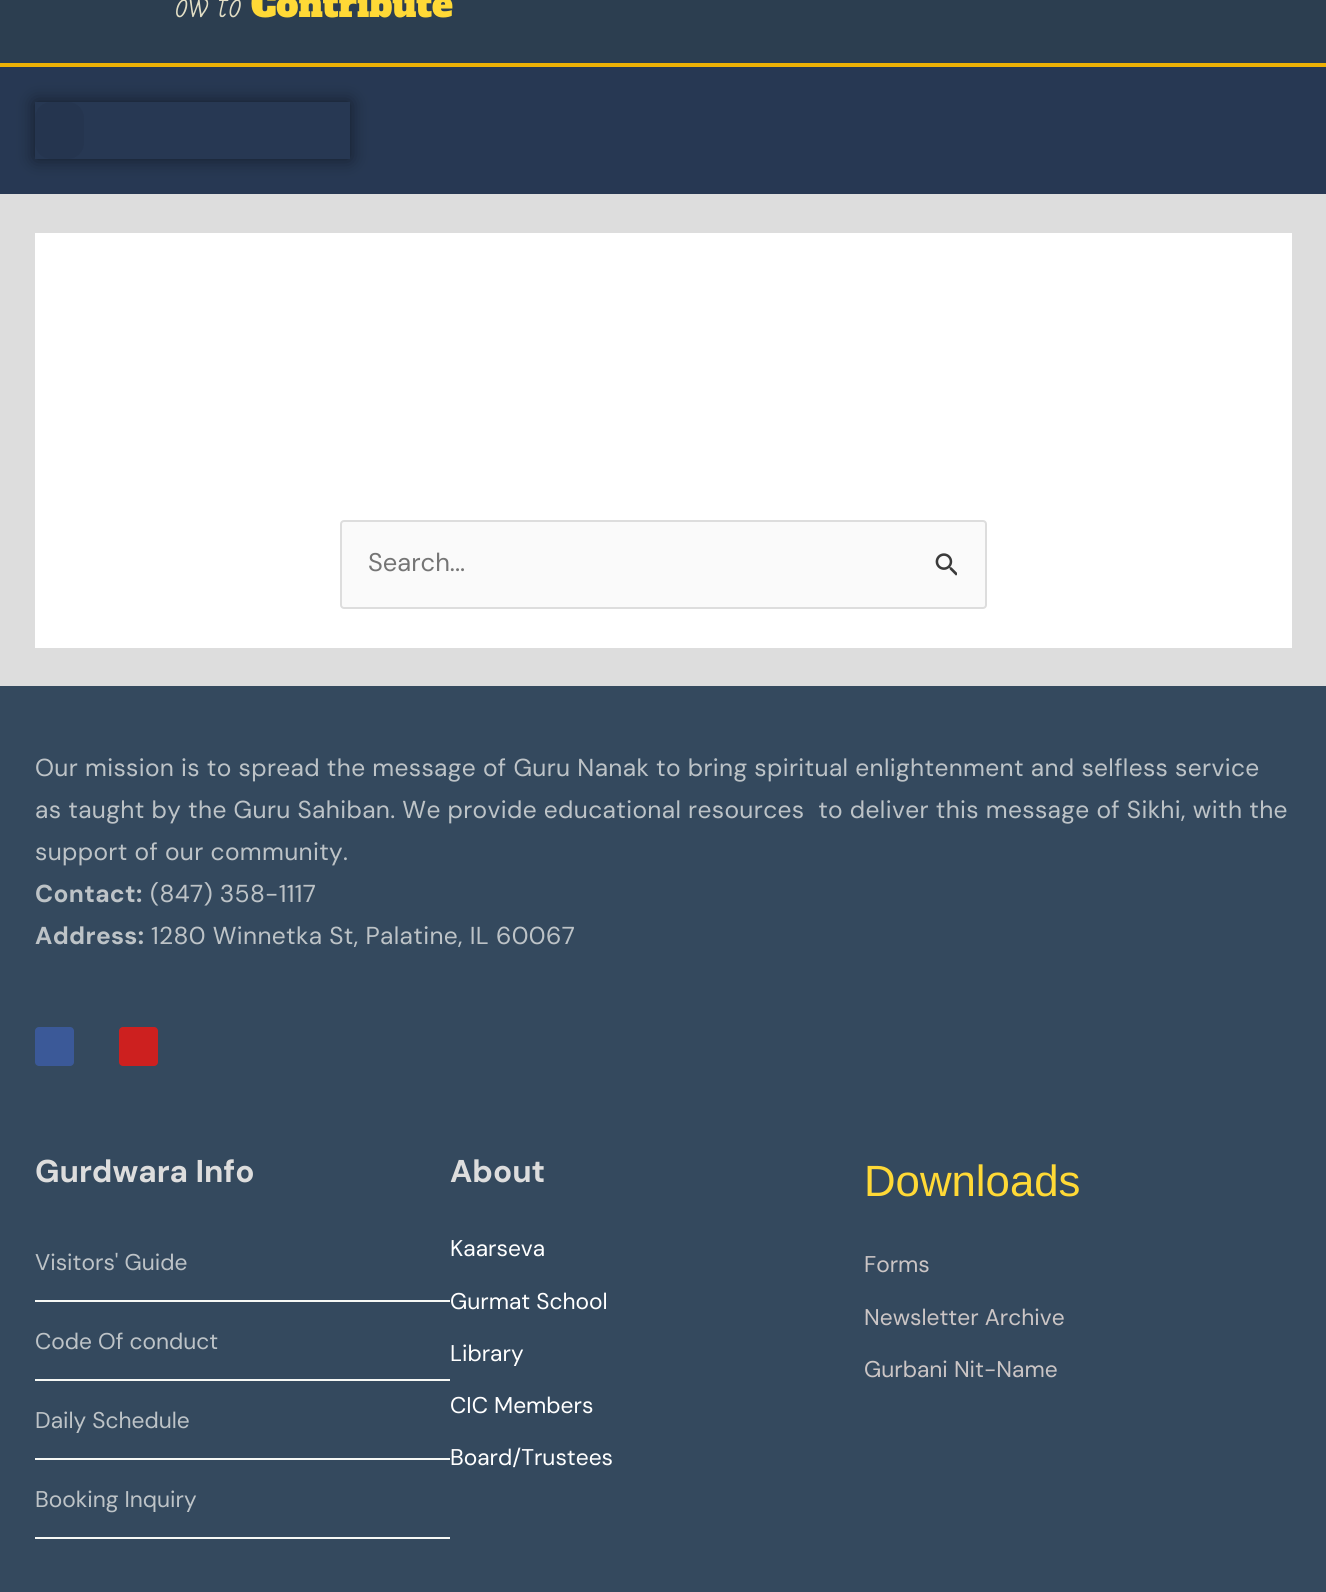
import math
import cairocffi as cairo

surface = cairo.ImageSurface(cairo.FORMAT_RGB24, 1326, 1592)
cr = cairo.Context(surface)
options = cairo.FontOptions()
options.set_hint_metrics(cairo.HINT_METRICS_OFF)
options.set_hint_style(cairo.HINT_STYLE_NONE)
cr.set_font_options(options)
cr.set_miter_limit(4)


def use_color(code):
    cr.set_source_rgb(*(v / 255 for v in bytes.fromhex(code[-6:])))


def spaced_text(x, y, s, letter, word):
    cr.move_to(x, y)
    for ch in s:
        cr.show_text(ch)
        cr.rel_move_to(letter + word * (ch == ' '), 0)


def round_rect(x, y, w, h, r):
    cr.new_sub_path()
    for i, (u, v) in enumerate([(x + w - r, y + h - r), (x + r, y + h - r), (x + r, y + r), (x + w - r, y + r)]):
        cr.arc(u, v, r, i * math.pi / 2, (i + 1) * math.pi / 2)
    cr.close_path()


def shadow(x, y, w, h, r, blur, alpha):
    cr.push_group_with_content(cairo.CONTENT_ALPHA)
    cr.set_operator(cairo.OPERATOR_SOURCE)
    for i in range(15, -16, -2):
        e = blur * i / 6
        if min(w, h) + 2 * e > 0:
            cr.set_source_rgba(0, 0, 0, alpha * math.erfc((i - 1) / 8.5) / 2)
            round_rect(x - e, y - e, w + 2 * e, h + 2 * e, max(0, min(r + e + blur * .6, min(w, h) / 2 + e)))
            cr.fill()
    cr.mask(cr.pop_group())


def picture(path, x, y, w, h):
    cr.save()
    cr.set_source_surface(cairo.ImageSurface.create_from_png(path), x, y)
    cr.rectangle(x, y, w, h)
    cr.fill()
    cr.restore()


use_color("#dddddd")
cr.paint()
use_color("#2c3e50")
cr.rectangle(0, 0, 1326, 63)
cr.fill()
cr.select_font_face("Bad Script")
cr.set_font_size(35)
use_color("#e2dec5")
cr.move_to(175, 17)
cr.show_text("ow to")
cr.select_font_face("Alfa Slab One")
use_color("#ffd936")
cr.move_to(251, 17)
cr.show_text("Contribute")
use_color("#273853")
cr.rectangle(0, 67, 1326, 127)
cr.fill()
use_color("#edb105")
cr.rectangle(0, 63, 1326, 4)
cr.fill()
cr.save()
cr.set_fill_rule(cairo.FILL_RULE_EVEN_ODD)
cr.new_path()
cr.move_to(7, 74)
cr.line_to(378, 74)
cr.line_to(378, 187)
cr.line_to(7, 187)
cr.close_path()
cr.move_to(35, 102)
cr.line_to(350, 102)
cr.line_to(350, 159)
cr.line_to(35, 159)
cr.close_path()
cr.clip()
use_color("#000000")
shadow(35, 102, 315, 57, 0, 9, 0.5)
cr.restore()
use_color("#25354f")
round_rect(35, 102, 49, 57, 16)
cr.fill()
use_color("#ffffff")
cr.rectangle(35, 233, 1257, 415)
cr.fill()
use_color("#fafafa")
round_rect(341, 521, 645, 87, 3)
cr.fill_preserve()
use_color("#dddddd")
cr.stroke()
cr.select_font_face("DM Sans")
cr.set_font_size(25.5)
use_color("#757575")
cr.move_to(368, 571)
cr.show_text("Search...")
picture("img1.png", 935, 553, 22, 23)
use_color("#34495e")
cr.rectangle(0, 686, 1326, 906)
cr.fill()
cr.set_font_size(24.5)
use_color("#bdc3c7")
spaced_text(35, 776, "Our mission is to spread the message of Guru Nanak to bring spiritual enlightenment and selfless service", 0.35, 0)
spaced_text(35, 818, "as taught by the Guru Sahiban. We provide educational resources  to deliver this message of Sikhi, with the", 0.35, 0)
spaced_text(35, 860, "support of our community.", 0.35, 0)
cr.select_font_face("DM Sans", cairo.FONT_SLANT_NORMAL, cairo.FONT_WEIGHT_BOLD)
spaced_text(35, 902, "Contact:", 0.35, 0)
cr.select_font_face("DM Sans")
spaced_text(150, 902, "(847) 358-1117", 0.35, 0)
cr.select_font_face("DM Sans", cairo.FONT_SLANT_NORMAL, cairo.FONT_WEIGHT_BOLD)
spaced_text(35, 944, "Address:", 0.35, 0)
cr.select_font_face("DM Sans")
spaced_text(151, 944, "1280 Winnetka St, Palatine, IL 60067", 0.35, 0)
use_color("#3b5998")
round_rect(35, 1027, 39, 39, 4)
cr.fill()
use_color("#cd201f")
round_rect(119, 1027, 39, 39, 4)
cr.fill()
cr.select_font_face("DM Sans", cairo.FONT_SLANT_NORMAL, cairo.FONT_WEIGHT_BOLD)
cr.set_font_size(31.5)
use_color("#dddddd")
cr.move_to(35, 1182)
cr.show_text("Gurdwara Info")
cr.select_font_face("DM Sans")
cr.set_font_size(22.75)
use_color("#bdc3c7")
cr.move_to(35, 1270)
cr.show_text("Visitors' Guide")
use_color("#f6f8f5")
cr.rectangle(35, 1300, 415, 2)
cr.fill()
use_color("#bdc3c7")
cr.move_to(35, 1349)
cr.show_text("Code Of conduct")
use_color("#f6f8f5")
cr.rectangle(35, 1379, 415, 2)
cr.fill()
use_color("#bdc3c7")
cr.move_to(35, 1428)
cr.show_text("Daily Schedule")
use_color("#f6f8f5")
cr.rectangle(35, 1458, 415, 2)
cr.fill()
use_color("#bdc3c7")
cr.move_to(35, 1507)
cr.show_text("Booking Inquiry")
use_color("#f6f8f5")
cr.rectangle(35, 1537, 415, 2)
cr.fill()
cr.select_font_face("DM Sans", cairo.FONT_SLANT_NORMAL, cairo.FONT_WEIGHT_BOLD)
cr.set_font_size(31.5)
use_color("#dddddd")
cr.move_to(450, 1182)
cr.show_text("About")
cr.select_font_face("DM Sans")
cr.set_font_size(22.75)
use_color("#ffffff")
cr.move_to(450, 1256)
cr.show_text("Kaarseva")
cr.move_to(450, 1309)
cr.show_text("Gurmat School")
cr.move_to(450, 1361)
cr.show_text("Library")
cr.move_to(450, 1413)
cr.show_text("CIC Members")
cr.move_to(450, 1465)
cr.show_text("Board/Trustees")
cr.select_font_face("Liberation Sans")
cr.set_font_size(43.75)
use_color("#ffd936")
cr.move_to(864, 1196)
cr.show_text("Downloads")
cr.select_font_face("DM Sans")
cr.set_font_size(22.75)
use_color("#cbc5c5")
cr.move_to(864, 1272)
cr.show_text("Forms")
cr.move_to(864, 1325)
cr.show_text("Newsletter Archive")
cr.move_to(864, 1377)
cr.show_text("Gurbani Nit-Name")
surface.write_to_png("result.png")
